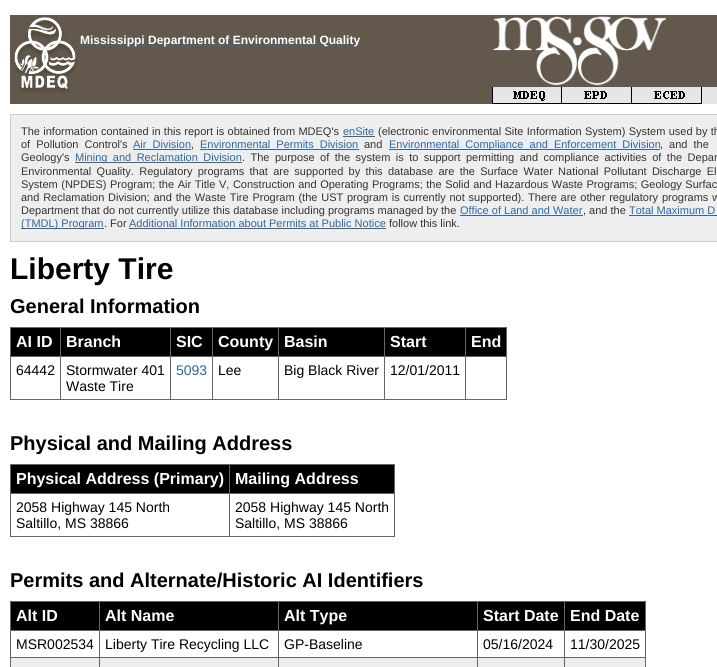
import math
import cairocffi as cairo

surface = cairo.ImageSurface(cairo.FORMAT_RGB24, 717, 667)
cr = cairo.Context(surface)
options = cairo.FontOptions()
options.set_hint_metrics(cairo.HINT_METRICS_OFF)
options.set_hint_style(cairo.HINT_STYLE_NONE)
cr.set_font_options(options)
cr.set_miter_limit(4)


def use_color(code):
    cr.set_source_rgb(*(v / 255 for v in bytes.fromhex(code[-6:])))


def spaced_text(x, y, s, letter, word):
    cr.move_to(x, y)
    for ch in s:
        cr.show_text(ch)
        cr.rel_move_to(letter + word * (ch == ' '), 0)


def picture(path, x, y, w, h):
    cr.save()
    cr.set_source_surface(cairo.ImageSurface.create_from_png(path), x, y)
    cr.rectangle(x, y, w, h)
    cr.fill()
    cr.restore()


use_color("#ffffff")
cr.paint()
use_color("#63584c")
cr.rectangle(10, 15, 482, 89)
cr.fill()
picture("img1.png", 12, 17, 66, 76)
cr.rectangle(492, 15, 225, 72)
cr.fill()
picture("img2.png", 493, 16, 174, 70)
picture("img3.png", 492, 87, 70, 17)
picture("img4.png", 562, 87, 70, 17)
picture("img5.png", 632, 87, 70, 17)
use_color("#e6e6e6")
cr.rectangle(702, 87, 15, 17)
cr.fill()
use_color("#336699")
cr.rectangle(80, 45, 280, 1)
cr.fill()
cr.select_font_face("Liberation Sans", cairo.FONT_SLANT_NORMAL, cairo.FONT_WEIGHT_BOLD)
cr.set_font_size(12)
use_color("#ffffff")
cr.move_to(80, 44)
cr.show_text("Mississippi Department of Environmental Quality")
use_color("#eeeeee")
cr.rectangle(10.5, 114.5, 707, 127)
cr.fill_preserve()
use_color("#cccccc")
cr.set_line_width(1)
cr.stroke()
cr.select_font_face("Liberation Sans")
cr.set_font_size(11)
use_color("#333333")
spaced_text(21, 135, "The information contained in this report is obtained from MDEQ's", 0, 0.25)
use_color("#336699")
cr.move_to(343, 135)
cr.show_text("enSite")
cr.rectangle(343, 136, 32, 1)
cr.fill()
use_color("#333333")
spaced_text(378, 135, "(electronic environmental Site Information System) System used by th", 0, 0.25)
spaced_text(21, 148, "of Pollution Control's", 0, 3)
use_color("#336699")
spaced_text(133, 148, "Air Division", 0, 3)
cr.rectangle(133, 149, 58, 1)
cr.fill()
use_color("#333333")
cr.move_to(191, 148)
cr.show_text(",")
use_color("#336699")
spaced_text(200, 148, "Environmental Permits Division", 0, 3)
cr.rectangle(200, 149, 159, 1)
cr.fill()
use_color("#333333")
cr.move_to(364, 148)
cr.show_text("and")
use_color("#336699")
cr.rectangle(389, 149, 271, 1)
cr.fill()
spaced_text(389, 148, "Environmental Compliance and Enforcement Division", 0, 3)
use_color("#333333")
spaced_text(660, 148, ", and the", 0, 3)
cr.move_to(21, 161)
cr.show_text("Geology's")
use_color("#336699")
cr.rectangle(75, 162, 167, 1)
cr.fill()
spaced_text(75, 161, "Mining and Reclamation Division", 0, 2.4)
use_color("#333333")
spaced_text(242, 161, ". The purpose of the system is to support permitting and compliance activities of the Depar", 0, 2.4)
spaced_text(21, 175, "Environmental Quality. Regulatory programs that are supported by this database are the Surface Water National Pollutant Discharge Eli", 0, 2.25)
spaced_text(21, 188, "System (NPDES) Program; the Air Title V, Construction and Operating Programs; the Solid and Hazardous Waste Programs; Geology Surfac", 0, 0.5)
spaced_text(21, 201, "and Reclamation Division; and the Waste Tire Program (the UST program is currently not supported). There are other regulatory programs w", 0, 0.75)
cr.move_to(21, 214)
cr.show_text("Department that do not currently utilize this database including programs managed by the")
use_color("#336699")
cr.move_to(460, 214)
cr.show_text("Office of Land and Water")
cr.rectangle(460, 215, 123, 1)
cr.fill()
use_color("#333333")
cr.move_to(583, 214)
cr.show_text(", and the")
use_color("#336699")
cr.move_to(629, 214)
cr.show_text("Total Maximum D")
cr.rectangle(629, 215, 88, 1)
cr.fill()
cr.rectangle(21, 228, 83, 1)
cr.fill()
cr.move_to(21, 227)
cr.show_text("(TMDL) Program")
use_color("#333333")
cr.move_to(104, 227)
cr.show_text(". For")
use_color("#336699")
cr.move_to(129, 227)
cr.show_text("Additional Information about Permits at Public Notice")
cr.rectangle(129, 228, 257, 1)
cr.fill()
use_color("#333333")
cr.move_to(389, 227)
cr.show_text("follow this link.")
cr.select_font_face("Liberation Sans", cairo.FONT_SLANT_NORMAL, cairo.FONT_WEIGHT_BOLD)
cr.set_font_size(30)
use_color("#000000")
cr.move_to(10, 279)
cr.show_text("Liberty Tire")
cr.set_font_size(20)
cr.move_to(10, 313)
cr.show_text("General Information")
cr.rectangle(11, 328, 49, 28)
cr.fill()
use_color("#666666")
cr.rectangle(465, 327, 42, 1)
cr.fill()
cr.rectangle(465, 356, 42, 1)
cr.fill()
cr.rectangle(506, 356, 1, 44)
cr.fill()
cr.rectangle(465, 399, 42, 1)
cr.fill()
cr.rectangle(465, 356, 1, 44)
cr.fill()
cr.rectangle(384, 356, 82, 1)
cr.fill()
cr.rectangle(465, 327, 1, 30)
cr.fill()
cr.rectangle(384, 327, 82, 1)
cr.fill()
cr.rectangle(384, 399, 82, 1)
cr.fill()
cr.rectangle(384, 356, 1, 44)
cr.fill()
cr.rectangle(278, 356, 107, 1)
cr.fill()
cr.rectangle(384, 327, 1, 30)
cr.fill()
cr.rectangle(278, 327, 107, 1)
cr.fill()
cr.rectangle(278, 399, 107, 1)
cr.fill()
cr.rectangle(278, 356, 1, 44)
cr.fill()
cr.rectangle(212, 356, 67, 1)
cr.fill()
cr.rectangle(278, 327, 1, 30)
cr.fill()
cr.rectangle(212, 327, 67, 1)
cr.fill()
cr.rectangle(212, 399, 67, 1)
cr.fill()
cr.rectangle(212, 356, 1, 44)
cr.fill()
cr.rectangle(170, 356, 43, 1)
cr.fill()
cr.rectangle(212, 327, 1, 30)
cr.fill()
cr.rectangle(170, 327, 43, 1)
cr.fill()
cr.rectangle(170, 399, 43, 1)
cr.fill()
cr.rectangle(170, 356, 1, 44)
cr.fill()
cr.rectangle(60, 356, 111, 1)
cr.fill()
cr.rectangle(170, 327, 1, 30)
cr.fill()
cr.rectangle(60, 327, 111, 1)
cr.fill()
cr.rectangle(60, 399, 111, 1)
cr.fill()
cr.rectangle(60, 356, 1, 44)
cr.fill()
cr.rectangle(10, 356, 51, 1)
cr.fill()
cr.rectangle(60, 327, 1, 30)
cr.fill()
cr.rectangle(10, 327, 51, 1)
cr.fill()
cr.rectangle(10, 399, 51, 1)
cr.fill()
cr.rectangle(10, 356, 1, 44)
cr.fill()
cr.rectangle(10, 327, 1, 30)
cr.fill()
cr.set_font_size(16)
use_color("#ffffff")
cr.move_to(16, 347)
cr.show_text("AI ID")
use_color("#000000")
cr.rectangle(61, 328, 109, 28)
cr.fill()
use_color("#ffffff")
cr.move_to(66, 347)
cr.show_text("Branch")
use_color("#000000")
cr.rectangle(171, 328, 41, 28)
cr.fill()
use_color("#ffffff")
cr.move_to(176, 347)
cr.show_text("SIC")
use_color("#000000")
cr.rectangle(213, 328, 65, 28)
cr.fill()
use_color("#ffffff")
cr.move_to(218, 347)
cr.show_text("County")
use_color("#000000")
cr.rectangle(279, 328, 105, 28)
cr.fill()
use_color("#ffffff")
cr.move_to(284, 347)
cr.show_text("Basin")
use_color("#000000")
cr.rectangle(385, 328, 80, 28)
cr.fill()
use_color("#ffffff")
cr.move_to(390, 347)
cr.show_text("Start")
use_color("#000000")
cr.rectangle(466, 328, 40, 28)
cr.fill()
use_color("#666666")
cr.rectangle(506, 327, 1, 30)
cr.fill()
use_color("#ffffff")
cr.move_to(471, 347)
cr.show_text("End")
cr.select_font_face("Liberation Sans")
cr.set_font_size(14)
use_color("#000000")
cr.move_to(16, 375)
cr.show_text("64442")
cr.move_to(66, 375)
cr.show_text("Stormwater 401")
cr.move_to(66, 391)
cr.show_text("Waste Tire")
use_color("#336699")
cr.move_to(176, 375)
cr.show_text("5093")
use_color("#000000")
cr.move_to(218, 375)
cr.show_text("Lee")
cr.move_to(284, 375)
cr.show_text("Big Black River")
cr.move_to(390, 375)
cr.show_text("12/01/2011")
cr.select_font_face("Liberation Sans", cairo.FONT_SLANT_NORMAL, cairo.FONT_WEIGHT_BOLD)
cr.set_font_size(20)
cr.move_to(10, 450)
cr.show_text("Physical and Mailing Address")
cr.rectangle(11, 465, 218, 28)
cr.fill()
use_color("#666666")
cr.rectangle(229, 464, 166, 1)
cr.fill()
cr.rectangle(229, 493, 166, 1)
cr.fill()
cr.rectangle(394, 493, 1, 44)
cr.fill()
cr.rectangle(229, 536, 166, 1)
cr.fill()
cr.rectangle(229, 493, 1, 44)
cr.fill()
cr.rectangle(10, 493, 220, 1)
cr.fill()
cr.rectangle(229, 464, 1, 30)
cr.fill()
cr.rectangle(10, 464, 220, 1)
cr.fill()
cr.rectangle(10, 536, 220, 1)
cr.fill()
cr.rectangle(10, 493, 1, 44)
cr.fill()
cr.rectangle(10, 464, 1, 30)
cr.fill()
cr.set_font_size(16)
use_color("#ffffff")
cr.move_to(16, 484)
cr.show_text("Physical Address (Primary)")
use_color("#000000")
cr.rectangle(230, 465, 164, 28)
cr.fill()
use_color("#666666")
cr.rectangle(394, 464, 1, 30)
cr.fill()
use_color("#ffffff")
cr.move_to(235, 484)
cr.show_text("Mailing Address")
cr.select_font_face("Liberation Sans")
cr.set_font_size(14)
use_color("#000000")
cr.move_to(16, 512)
cr.show_text("2058 Highway 145 North")
cr.move_to(16, 528)
cr.show_text("Saltillo, MS 38866")
cr.move_to(235, 512)
cr.show_text("2058 Highway 145 North")
cr.move_to(235, 528)
cr.show_text("Saltillo, MS 38866")
cr.select_font_face("Liberation Sans", cairo.FONT_SLANT_NORMAL, cairo.FONT_WEIGHT_BOLD)
cr.set_font_size(20)
cr.move_to(10, 587)
cr.show_text("Permits and Alternate/Historic AI Identifiers")
cr.rectangle(11, 602, 88, 28)
cr.fill()
use_color("#666666")
cr.rectangle(564, 601, 82, 1)
cr.fill()
cr.rectangle(564, 630, 82, 1)
cr.fill()
cr.rectangle(564, 657, 82, 1)
cr.fill()
use_color("#eeeeee")
cr.rectangle(11, 658, 634, 9)
cr.fill()
use_color("#666666")
cr.rectangle(564, 657, 1, 10)
cr.fill()
cr.rectangle(477, 657, 88, 1)
cr.fill()
cr.rectangle(564, 630, 1, 28)
cr.fill()
cr.rectangle(477, 630, 88, 1)
cr.fill()
cr.rectangle(564, 601, 1, 30)
cr.fill()
cr.rectangle(477, 601, 88, 1)
cr.fill()
cr.rectangle(477, 657, 1, 10)
cr.fill()
cr.rectangle(278, 657, 200, 1)
cr.fill()
cr.rectangle(477, 630, 1, 28)
cr.fill()
cr.rectangle(278, 630, 200, 1)
cr.fill()
cr.rectangle(477, 601, 1, 30)
cr.fill()
cr.rectangle(278, 601, 200, 1)
cr.fill()
cr.rectangle(278, 657, 1, 10)
cr.fill()
cr.rectangle(99, 657, 180, 1)
cr.fill()
cr.rectangle(278, 630, 1, 28)
cr.fill()
cr.rectangle(99, 630, 180, 1)
cr.fill()
cr.rectangle(278, 601, 1, 30)
cr.fill()
cr.rectangle(99, 601, 180, 1)
cr.fill()
cr.rectangle(99, 657, 1, 10)
cr.fill()
cr.rectangle(10, 657, 90, 1)
cr.fill()
cr.rectangle(99, 630, 1, 28)
cr.fill()
cr.rectangle(10, 630, 90, 1)
cr.fill()
cr.rectangle(99, 601, 1, 30)
cr.fill()
cr.rectangle(10, 601, 90, 1)
cr.fill()
cr.rectangle(10, 657, 1, 10)
cr.fill()
cr.rectangle(10, 630, 1, 28)
cr.fill()
cr.rectangle(10, 601, 1, 30)
cr.fill()
cr.set_font_size(16)
use_color("#ffffff")
cr.move_to(16, 621)
cr.show_text("Alt ID")
use_color("#000000")
cr.rectangle(100, 602, 178, 28)
cr.fill()
use_color("#ffffff")
cr.move_to(105, 621)
cr.show_text("Alt Name")
use_color("#000000")
cr.rectangle(279, 602, 198, 28)
cr.fill()
use_color("#ffffff")
cr.move_to(284, 621)
cr.show_text("Alt Type")
use_color("#000000")
cr.rectangle(478, 602, 86, 28)
cr.fill()
use_color("#ffffff")
cr.move_to(483, 621)
cr.show_text("Start Date")
use_color("#000000")
cr.rectangle(565, 602, 80, 28)
cr.fill()
use_color("#666666")
cr.rectangle(645, 657, 1, 10)
cr.fill()
cr.rectangle(645, 630, 1, 28)
cr.fill()
cr.rectangle(645, 601, 1, 30)
cr.fill()
use_color("#ffffff")
cr.move_to(570, 621)
cr.show_text("End Date")
cr.select_font_face("Liberation Sans")
cr.set_font_size(14)
use_color("#000000")
cr.move_to(16, 649)
cr.show_text("MSR002534")
cr.move_to(105, 649)
cr.show_text("Liberty Tire Recycling LLC")
cr.move_to(284, 649)
cr.show_text("GP-Baseline")
cr.move_to(483, 649)
cr.show_text("05/16/2024")
cr.move_to(570, 649)
cr.show_text("11/30/2025")
surface.write_to_png("result.png")
